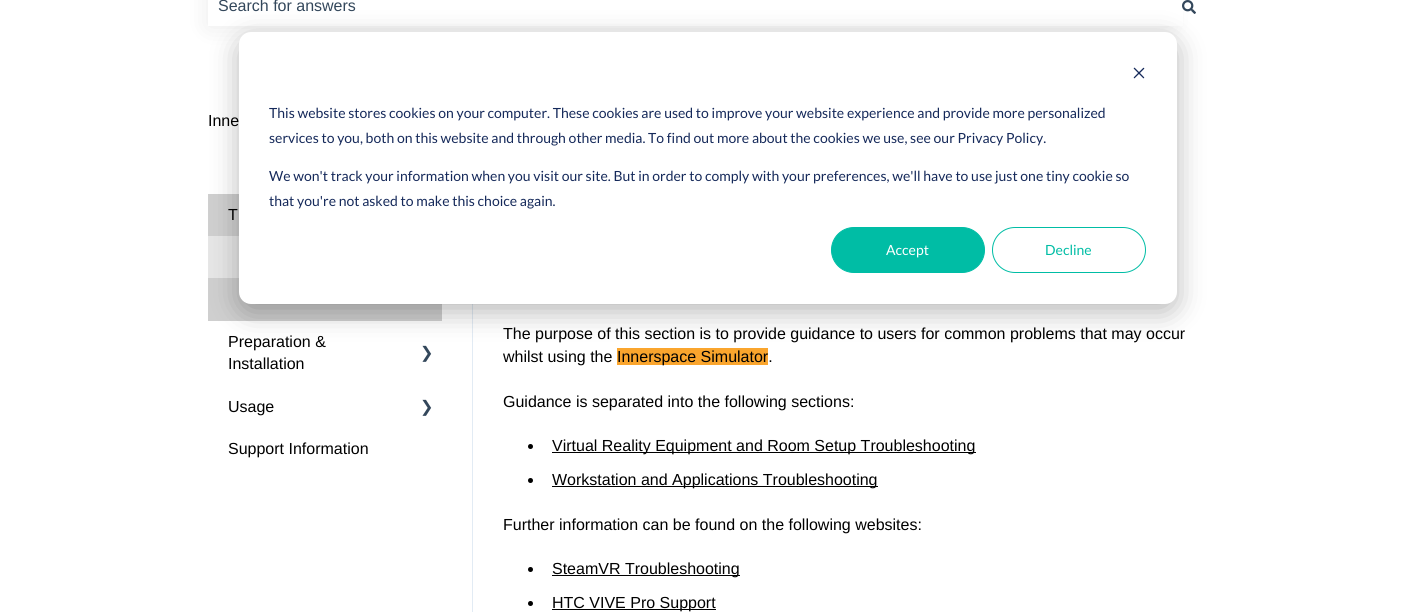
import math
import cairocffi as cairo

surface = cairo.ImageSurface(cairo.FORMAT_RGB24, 1415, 612)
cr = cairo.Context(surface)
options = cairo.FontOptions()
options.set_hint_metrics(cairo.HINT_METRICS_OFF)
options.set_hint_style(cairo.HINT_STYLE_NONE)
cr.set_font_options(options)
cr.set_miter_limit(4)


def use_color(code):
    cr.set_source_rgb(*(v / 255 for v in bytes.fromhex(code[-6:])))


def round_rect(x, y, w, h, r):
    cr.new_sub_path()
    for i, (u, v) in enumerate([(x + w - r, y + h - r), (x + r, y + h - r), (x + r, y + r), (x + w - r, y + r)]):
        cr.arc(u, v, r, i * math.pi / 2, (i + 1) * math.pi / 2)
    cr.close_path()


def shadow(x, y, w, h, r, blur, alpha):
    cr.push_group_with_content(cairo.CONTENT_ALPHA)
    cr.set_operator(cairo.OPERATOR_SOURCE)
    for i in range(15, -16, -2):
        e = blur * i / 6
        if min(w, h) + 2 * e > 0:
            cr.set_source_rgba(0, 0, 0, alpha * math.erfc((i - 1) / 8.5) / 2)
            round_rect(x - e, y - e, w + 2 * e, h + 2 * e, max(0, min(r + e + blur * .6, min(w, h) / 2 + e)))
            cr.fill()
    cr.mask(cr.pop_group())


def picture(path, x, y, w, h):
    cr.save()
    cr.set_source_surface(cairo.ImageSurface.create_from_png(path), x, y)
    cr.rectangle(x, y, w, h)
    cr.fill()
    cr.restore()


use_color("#ffffff")
cr.paint()
cr.save()
cr.set_fill_rule(cairo.FILL_RULE_EVEN_ODD)
cr.new_path()
cr.move_to(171, 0)
cr.line_to(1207, 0)
cr.line_to(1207, 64)
cr.line_to(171, 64)
cr.close_path()
cr.move_to(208, -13)
cr.line_to(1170, -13)
cr.line_to(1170, 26)
cr.line_to(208, 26)
cr.close_path()
cr.clip()
use_color("#000000")
shadow(208, -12, 962, 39, 0, 12, 0.08)
cr.restore()
cr.select_font_face("Liberation Sans")
cr.set_font_size(16)
use_color("#33475b")
cr.move_to(218, 11)
cr.show_text("Search for answers")
use_color("#ffffff")
cr.rectangle(1170, 0, 13, 26)
cr.fill()
picture("img1.png", 1182, 0, 14, 14)
use_color("#000000")
cr.move_to(208, 126)
cr.show_text("Inne")
use_color("#e2ebf4")
cr.rectangle(472, 304, 1, 308)
cr.fill()
use_color("#e6e6e6")
cr.rectangle(208, 236, 31, 42)
cr.fill()
use_color("#cfcfcf")
cr.rectangle(208, 194, 31, 42)
cr.fill()
use_color("#000000")
cr.move_to(228, 220)
cr.show_text("T")
use_color("#cfcfcf")
cr.rectangle(208, 278, 234, 43)
cr.fill()
use_color("#000000")
cr.move_to(228, 347)
cr.show_text("Preparation &")
cr.move_to(228, 369)
cr.show_text("Installation")
cr.select_font_face("DejaVu Sans")
use_color("#33475b")
cr.move_to(420, 358)
cr.show_text("❯")
cr.select_font_face("Liberation Sans")
use_color("#000000")
cr.move_to(228, 412)
cr.show_text("Usage")
cr.select_font_face("DejaVu Sans")
use_color("#33475b")
cr.move_to(420, 412)
cr.show_text("❯")
cr.select_font_face("Liberation Sans")
use_color("#000000")
cr.move_to(228, 454)
cr.show_text("Support Information")
cr.move_to(503, 339)
cr.show_text("The purpose of this section is to provide guidance to users for common problems that may occur")
cr.move_to(503, 362)
cr.show_text("whilst using the")
use_color("#faa52d")
cr.rectangle(617, 348, 151, 17)
cr.fill()
use_color("#000000")
cr.move_to(617, 362)
cr.show_text("Innerspace Simulator.")
cr.move_to(503, 407)
cr.show_text("Guidance is separated into the following sections:")
cr.new_path()
cr.arc(530.5, 446.5, 2.5, 0, 2 * math.pi)
cr.fill()
cr.rectangle(552, 452, 424, 1)
cr.fill()
cr.move_to(552, 451)
cr.show_text("Virtual Reality Equipment and Room Setup Troubleshooting")
cr.new_path()
cr.arc(530.5, 480.5, 2.5, 0, 2 * math.pi)
cr.fill()
cr.rectangle(552, 486, 326, 1)
cr.fill()
cr.move_to(552, 485)
cr.show_text("Workstation and Applications Troubleshooting")
cr.move_to(503, 530)
cr.show_text("Further information can be found on the following websites:")
cr.new_path()
cr.arc(530.5, 569.5, 2.5, 0, 2 * math.pi)
cr.fill()
cr.rectangle(552, 575, 188, 1)
cr.fill()
cr.move_to(552, 574)
cr.show_text("SteamVR Troubleshooting")
cr.new_path()
cr.arc(530.5, 603.5, 2.5, 0, 2 * math.pi)
cr.fill()
cr.rectangle(552, 609, 164, 1)
cr.fill()
cr.move_to(552, 608)
cr.show_text("HTC VIVE Pro Support")
use_color("#000000")
shadow(239, 40, 938, 272, 12, 14, 0.28)
use_color("#ffffff")
round_rect(239, 32, 938, 272, 12)
cr.fill()
picture("img2.png", 1133, 67, 12, 12)
cr.select_font_face("Lato")
cr.set_font_size(14)
use_color("#15295a")
cr.move_to(269, 118)
cr.show_text("This website stores cookies on your computer. These cookies are used to improve your website experience and provide more personalized")
cr.move_to(269, 143)
cr.show_text("services to you, both on this website and through other media. To find out more about the cookies we use, see our Privacy Policy.")
cr.move_to(269, 181)
cr.show_text("We won't track your information when you visit our site. But in order to comply with your preferences, we'll have to use just one tiny cookie so")
cr.move_to(269, 206)
cr.show_text("that you're not asked to make this choice again.")
use_color("#00bda5")
round_rect(831.5, 227.5, 153, 45, 22.5)
cr.fill_preserve()
cr.set_line_width(1)
cr.stroke()
use_color("#ffffff")
cr.move_to(886, 255)
cr.show_text("Accept")
round_rect(992.5, 227.5, 153, 45, 22.5)
use_color("#00bda5")
cr.stroke()
cr.move_to(1045, 255)
cr.show_text("Decline")
surface.write_to_png("result.png")
